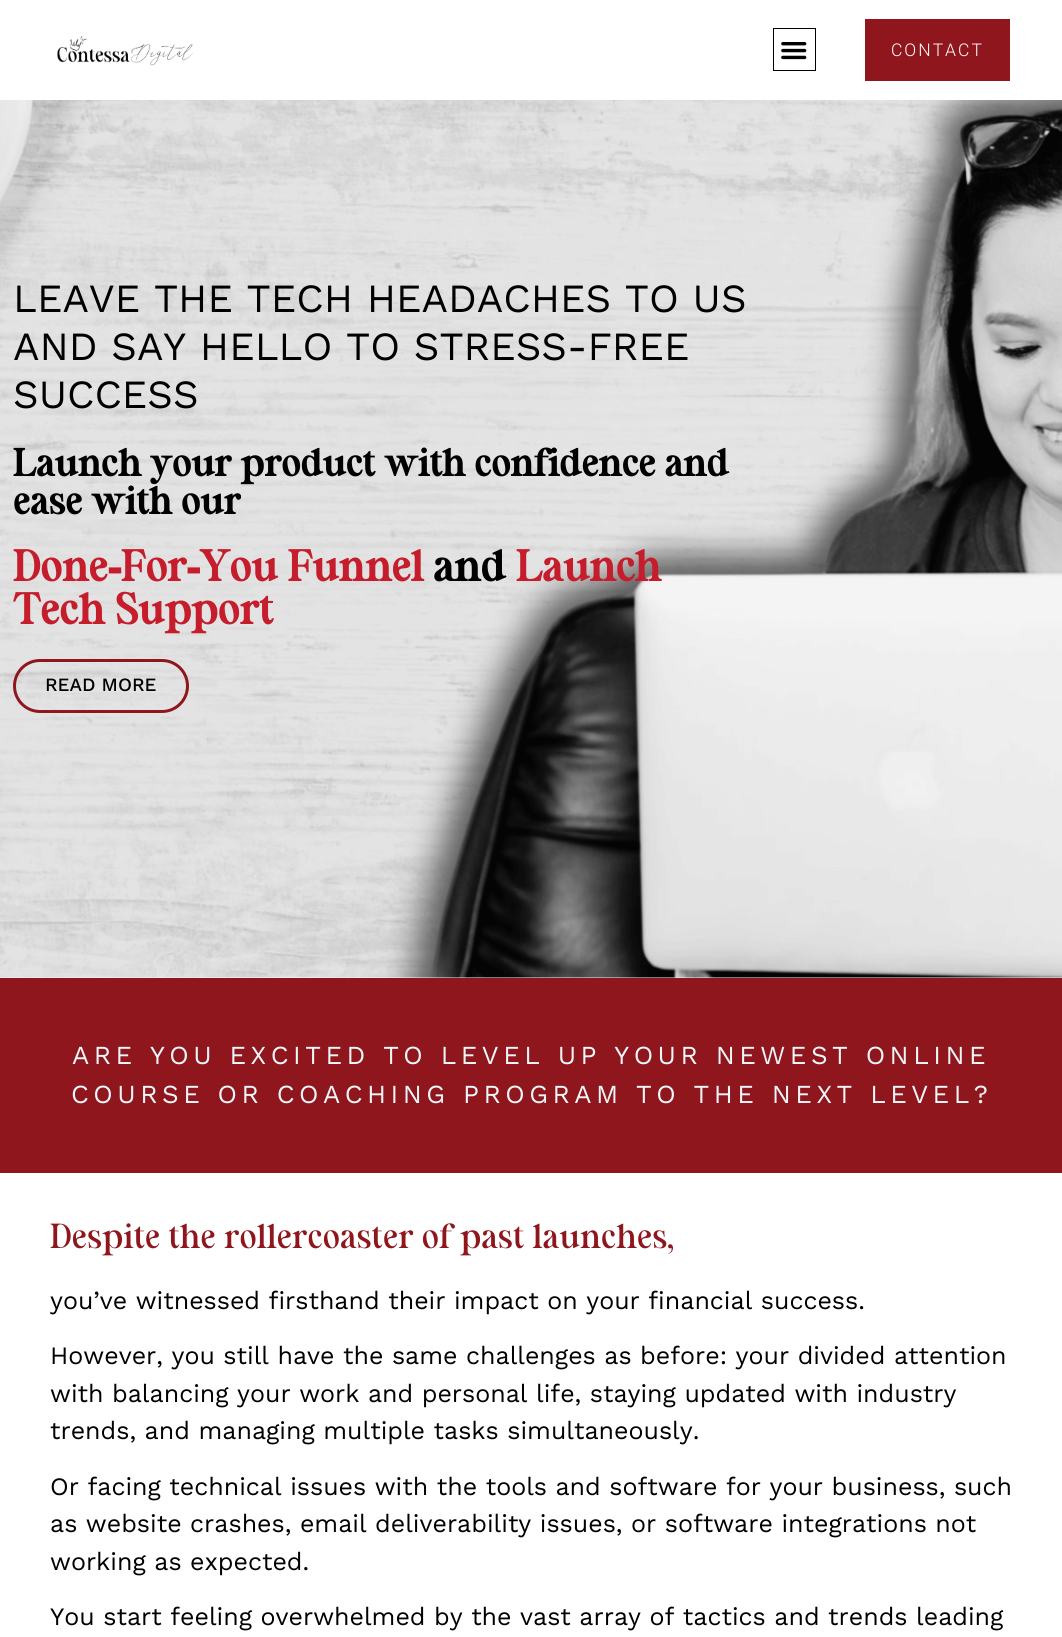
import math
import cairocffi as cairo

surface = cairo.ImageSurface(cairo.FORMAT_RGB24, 1062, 1637)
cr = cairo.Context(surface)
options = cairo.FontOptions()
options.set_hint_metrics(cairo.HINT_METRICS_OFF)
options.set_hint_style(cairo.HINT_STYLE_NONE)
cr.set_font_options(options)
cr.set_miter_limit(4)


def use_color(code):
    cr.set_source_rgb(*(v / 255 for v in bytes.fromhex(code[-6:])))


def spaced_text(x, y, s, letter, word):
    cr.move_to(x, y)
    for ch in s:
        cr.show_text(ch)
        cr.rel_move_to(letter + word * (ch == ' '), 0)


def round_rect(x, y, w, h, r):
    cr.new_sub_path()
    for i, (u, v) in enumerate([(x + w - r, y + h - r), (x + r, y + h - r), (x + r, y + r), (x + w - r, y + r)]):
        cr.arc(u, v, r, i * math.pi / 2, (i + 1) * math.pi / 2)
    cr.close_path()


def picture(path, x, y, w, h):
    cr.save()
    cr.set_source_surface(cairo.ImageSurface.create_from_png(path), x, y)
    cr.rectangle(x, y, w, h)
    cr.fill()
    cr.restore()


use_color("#ffffff")
cr.paint()
picture("img1.png", 57, 36, 136, 30)
cr.rectangle(773.5, 28.5, 42, 42)
use_color("#000000")
cr.set_line_width(1)
cr.stroke()
picture("img2.png", 781, 42, 26, 18)
use_color("#8f161d")
cr.rectangle(865, 19, 145, 62)
cr.fill()
cr.select_font_face("Roboto Light")
cr.set_font_size(17.5)
use_color("#ffffff")
spaced_text(891, 56, "CONTACT", 2, 0)
use_color("#eff6f9")
cr.rectangle(0, 977, 1062, 1)
cr.fill()
picture("img3.png", 0, 100, 1062, 878)
cr.select_font_face("Work Sans")
cr.set_font_size(40)
use_color("#000000")
cr.move_to(13, 312)
cr.show_text("LEAVE THE TECH HEADACHES TO US")
cr.move_to(13, 360)
cr.show_text("AND SAY HELLO TO STRESS-FREE")
cr.move_to(13, 408)
cr.show_text("SUCCESS")
cr.select_font_face("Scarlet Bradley", cairo.FONT_SLANT_NORMAL, cairo.FONT_WEIGHT_BOLD)
cr.set_font_size(37.5)
cr.move_to(13, 476)
cr.show_text("Launch your product with confidence and")
cr.move_to(13, 514)
cr.show_text("ease with our")
cr.set_font_size(42.5)
use_color("#c51d2b")
cr.move_to(13, 581)
cr.show_text("Done-For-You Funnel")
use_color("#000000")
cr.move_to(433, 581)
cr.show_text("and")
use_color("#c51d2b")
cr.move_to(516, 581)
cr.show_text("Launch")
cr.move_to(13, 624)
cr.show_text("Tech Support")
round_rect(14.5, 660.5, 173, 51, 25.5)
use_color("#8f161d")
cr.set_line_width(3)
cr.stroke()
cr.select_font_face("Work Sans Medium")
cr.set_font_size(18.75)
use_color("#000000")
cr.move_to(45, 691)
cr.show_text("READ MORE")
use_color("#8f161d")
cr.rectangle(0, 978, 1062, 195)
cr.fill()
cr.select_font_face("Work Sans")
cr.set_font_size(26)
use_color("#eff6f9")
spaced_text(72, 1064, "ARE YOU EXCITED TO LEVEL UP YOUR NEWEST ONLINE", 4.5, 0)
spaced_text(71, 1103, "COURSE OR COACHING PROGRAM TO THE NEXT LEVEL?", 4.5, 0)
cr.select_font_face("Scarlet Bradley")
cr.set_font_size(33.75)
use_color("#8f161d")
cr.move_to(50, 1248)
cr.show_text("Despite the rollercoaster of past launches,")
cr.select_font_face("Work Sans")
cr.set_font_size(25)
use_color("#000000")
cr.move_to(50, 1309)
cr.show_text("you’ve witnessed firsthand their impact on your financial success.")
cr.move_to(50, 1364)
cr.show_text("However, you still have the same challenges as before: your divided attention")
cr.move_to(50, 1402)
cr.show_text("with balancing your work and personal life, staying updated with industry")
cr.move_to(50, 1439)
cr.show_text("trends, and managing multiple tasks simultaneously.")
cr.move_to(50, 1495)
cr.show_text("Or facing technical issues with the tools and software for your business, such")
cr.move_to(50, 1532)
cr.show_text("as website crashes, email deliverability issues, or software integrations not")
cr.move_to(50, 1570)
cr.show_text("working as expected.")
cr.move_to(50, 1625)
cr.show_text("You start feeling overwhelmed by the vast array of tactics and trends leading")
surface.write_to_png("result.png")
